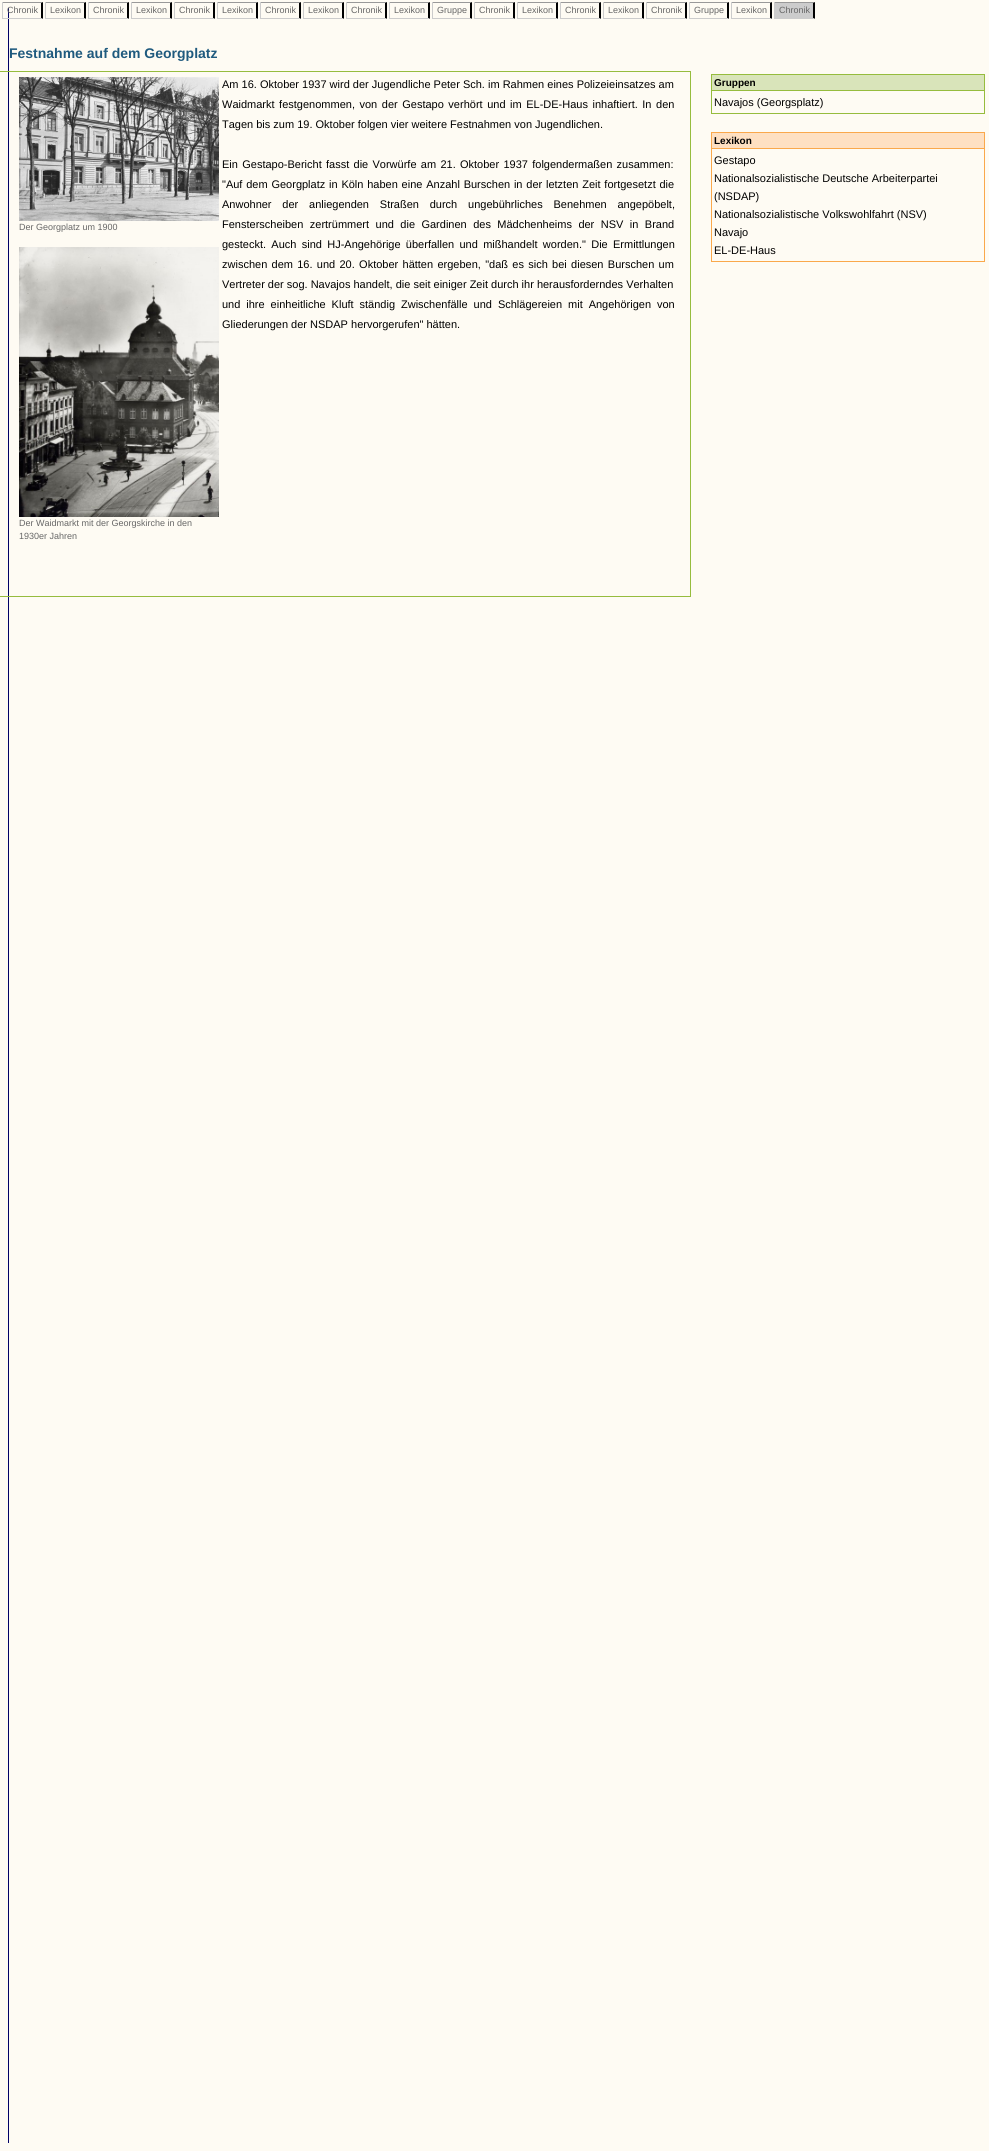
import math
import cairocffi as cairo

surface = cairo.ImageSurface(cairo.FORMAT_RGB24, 989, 2151)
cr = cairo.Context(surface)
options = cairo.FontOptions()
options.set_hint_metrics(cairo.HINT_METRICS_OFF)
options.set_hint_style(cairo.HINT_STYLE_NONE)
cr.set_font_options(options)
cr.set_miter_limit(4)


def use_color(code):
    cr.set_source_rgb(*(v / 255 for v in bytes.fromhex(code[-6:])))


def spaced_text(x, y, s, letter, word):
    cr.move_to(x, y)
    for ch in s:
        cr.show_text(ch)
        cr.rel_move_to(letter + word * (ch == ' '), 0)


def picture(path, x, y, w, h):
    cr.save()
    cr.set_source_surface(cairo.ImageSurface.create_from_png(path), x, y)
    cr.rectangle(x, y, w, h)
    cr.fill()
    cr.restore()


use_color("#fefbf3")
cr.paint()
use_color("#000066")
cr.rectangle(8, 8, 1, 2135)
cr.fill()
use_color("#999999")
cr.new_path()
cr.move_to(2, 2)
cr.line_to(43, 2)
cr.line_to(41, 3)
cr.line_to(3, 3)
cr.close_path()
cr.fill()
use_color("#000000")
cr.new_path()
cr.move_to(43, 2)
cr.line_to(43, 19)
cr.line_to(41, 18)
cr.line_to(41, 3)
cr.close_path()
cr.fill()
use_color("#cccccc")
cr.new_path()
cr.move_to(43, 19)
cr.line_to(2, 19)
cr.line_to(3, 18)
cr.line_to(41, 18)
cr.close_path()
cr.fill()
cr.rectangle(2, 2, 1, 17)
cr.fill()
cr.select_font_face("Liberation Sans")
cr.set_font_size(9)
use_color("#666666")
cr.move_to(7, 13)
cr.show_text("Chronik")
use_color("#999999")
cr.new_path()
cr.move_to(45, 2)
cr.line_to(86, 2)
cr.line_to(84, 3)
cr.line_to(46, 3)
cr.close_path()
cr.fill()
use_color("#000000")
cr.new_path()
cr.move_to(86, 2)
cr.line_to(86, 19)
cr.line_to(84, 18)
cr.line_to(84, 3)
cr.close_path()
cr.fill()
use_color("#cccccc")
cr.new_path()
cr.move_to(86, 19)
cr.line_to(45, 19)
cr.line_to(46, 18)
cr.line_to(84, 18)
cr.close_path()
cr.fill()
cr.rectangle(45, 2, 1, 17)
cr.fill()
use_color("#666666")
cr.move_to(50, 13)
cr.show_text("Lexikon")
use_color("#999999")
cr.new_path()
cr.move_to(88, 2)
cr.line_to(129, 2)
cr.line_to(127, 3)
cr.line_to(89, 3)
cr.close_path()
cr.fill()
use_color("#000000")
cr.new_path()
cr.move_to(129, 2)
cr.line_to(129, 19)
cr.line_to(127, 18)
cr.line_to(127, 3)
cr.close_path()
cr.fill()
use_color("#cccccc")
cr.new_path()
cr.move_to(129, 19)
cr.line_to(88, 19)
cr.line_to(89, 18)
cr.line_to(127, 18)
cr.close_path()
cr.fill()
cr.rectangle(88, 2, 1, 17)
cr.fill()
use_color("#666666")
cr.move_to(93, 13)
cr.show_text("Chronik")
use_color("#999999")
cr.new_path()
cr.move_to(131, 2)
cr.line_to(172, 2)
cr.line_to(170, 3)
cr.line_to(132, 3)
cr.close_path()
cr.fill()
use_color("#000000")
cr.new_path()
cr.move_to(172, 2)
cr.line_to(172, 19)
cr.line_to(170, 18)
cr.line_to(170, 3)
cr.close_path()
cr.fill()
use_color("#cccccc")
cr.new_path()
cr.move_to(172, 19)
cr.line_to(131, 19)
cr.line_to(132, 18)
cr.line_to(170, 18)
cr.close_path()
cr.fill()
cr.rectangle(131, 2, 1, 17)
cr.fill()
use_color("#666666")
cr.move_to(136, 13)
cr.show_text("Lexikon")
use_color("#999999")
cr.new_path()
cr.move_to(174, 2)
cr.line_to(215, 2)
cr.line_to(213, 3)
cr.line_to(175, 3)
cr.close_path()
cr.fill()
use_color("#000000")
cr.new_path()
cr.move_to(215, 2)
cr.line_to(215, 19)
cr.line_to(213, 18)
cr.line_to(213, 3)
cr.close_path()
cr.fill()
use_color("#cccccc")
cr.new_path()
cr.move_to(215, 19)
cr.line_to(174, 19)
cr.line_to(175, 18)
cr.line_to(213, 18)
cr.close_path()
cr.fill()
cr.rectangle(174, 2, 1, 17)
cr.fill()
use_color("#666666")
cr.move_to(179, 13)
cr.show_text("Chronik")
use_color("#999999")
cr.new_path()
cr.move_to(217, 2)
cr.line_to(258, 2)
cr.line_to(256, 3)
cr.line_to(218, 3)
cr.close_path()
cr.fill()
use_color("#000000")
cr.new_path()
cr.move_to(258, 2)
cr.line_to(258, 19)
cr.line_to(256, 18)
cr.line_to(256, 3)
cr.close_path()
cr.fill()
use_color("#cccccc")
cr.new_path()
cr.move_to(258, 19)
cr.line_to(217, 19)
cr.line_to(218, 18)
cr.line_to(256, 18)
cr.close_path()
cr.fill()
cr.rectangle(217, 2, 1, 17)
cr.fill()
use_color("#666666")
cr.move_to(222, 13)
cr.show_text("Lexikon")
use_color("#999999")
cr.new_path()
cr.move_to(260, 2)
cr.line_to(301, 2)
cr.line_to(299, 3)
cr.line_to(261, 3)
cr.close_path()
cr.fill()
use_color("#000000")
cr.new_path()
cr.move_to(301, 2)
cr.line_to(301, 19)
cr.line_to(299, 18)
cr.line_to(299, 3)
cr.close_path()
cr.fill()
use_color("#cccccc")
cr.new_path()
cr.move_to(301, 19)
cr.line_to(260, 19)
cr.line_to(261, 18)
cr.line_to(299, 18)
cr.close_path()
cr.fill()
cr.rectangle(260, 2, 1, 17)
cr.fill()
use_color("#666666")
cr.move_to(265, 13)
cr.show_text("Chronik")
use_color("#999999")
cr.new_path()
cr.move_to(303, 2)
cr.line_to(344, 2)
cr.line_to(342, 3)
cr.line_to(304, 3)
cr.close_path()
cr.fill()
use_color("#000000")
cr.new_path()
cr.move_to(344, 2)
cr.line_to(344, 19)
cr.line_to(342, 18)
cr.line_to(342, 3)
cr.close_path()
cr.fill()
use_color("#cccccc")
cr.new_path()
cr.move_to(344, 19)
cr.line_to(303, 19)
cr.line_to(304, 18)
cr.line_to(342, 18)
cr.close_path()
cr.fill()
cr.rectangle(303, 2, 1, 17)
cr.fill()
use_color("#666666")
cr.move_to(308, 13)
cr.show_text("Lexikon")
use_color("#999999")
cr.new_path()
cr.move_to(346, 2)
cr.line_to(387, 2)
cr.line_to(385, 3)
cr.line_to(347, 3)
cr.close_path()
cr.fill()
use_color("#000000")
cr.new_path()
cr.move_to(387, 2)
cr.line_to(387, 19)
cr.line_to(385, 18)
cr.line_to(385, 3)
cr.close_path()
cr.fill()
use_color("#cccccc")
cr.new_path()
cr.move_to(387, 19)
cr.line_to(346, 19)
cr.line_to(347, 18)
cr.line_to(385, 18)
cr.close_path()
cr.fill()
cr.rectangle(346, 2, 1, 17)
cr.fill()
use_color("#666666")
cr.move_to(351, 13)
cr.show_text("Chronik")
use_color("#999999")
cr.new_path()
cr.move_to(389, 2)
cr.line_to(430, 2)
cr.line_to(428, 3)
cr.line_to(390, 3)
cr.close_path()
cr.fill()
use_color("#000000")
cr.new_path()
cr.move_to(430, 2)
cr.line_to(430, 19)
cr.line_to(428, 18)
cr.line_to(428, 3)
cr.close_path()
cr.fill()
use_color("#cccccc")
cr.new_path()
cr.move_to(430, 19)
cr.line_to(389, 19)
cr.line_to(390, 18)
cr.line_to(428, 18)
cr.close_path()
cr.fill()
cr.rectangle(389, 2, 1, 17)
cr.fill()
use_color("#666666")
cr.move_to(394, 13)
cr.show_text("Lexikon")
use_color("#999999")
cr.new_path()
cr.move_to(432, 2)
cr.line_to(472, 2)
cr.line_to(470, 3)
cr.line_to(433, 3)
cr.close_path()
cr.fill()
use_color("#000000")
cr.new_path()
cr.move_to(472, 2)
cr.line_to(472, 19)
cr.line_to(470, 18)
cr.line_to(470, 3)
cr.close_path()
cr.fill()
use_color("#cccccc")
cr.new_path()
cr.move_to(472, 19)
cr.line_to(432, 19)
cr.line_to(433, 18)
cr.line_to(470, 18)
cr.close_path()
cr.fill()
cr.rectangle(432, 2, 1, 17)
cr.fill()
use_color("#666666")
cr.move_to(437, 13)
cr.show_text("Gruppe")
use_color("#999999")
cr.new_path()
cr.move_to(474, 2)
cr.line_to(515, 2)
cr.line_to(513, 3)
cr.line_to(475, 3)
cr.close_path()
cr.fill()
use_color("#000000")
cr.new_path()
cr.move_to(515, 2)
cr.line_to(515, 19)
cr.line_to(513, 18)
cr.line_to(513, 3)
cr.close_path()
cr.fill()
use_color("#cccccc")
cr.new_path()
cr.move_to(515, 19)
cr.line_to(474, 19)
cr.line_to(475, 18)
cr.line_to(513, 18)
cr.close_path()
cr.fill()
cr.rectangle(474, 2, 1, 17)
cr.fill()
use_color("#666666")
cr.move_to(479, 13)
cr.show_text("Chronik")
use_color("#999999")
cr.new_path()
cr.move_to(517, 2)
cr.line_to(558, 2)
cr.line_to(556, 3)
cr.line_to(518, 3)
cr.close_path()
cr.fill()
use_color("#000000")
cr.new_path()
cr.move_to(558, 2)
cr.line_to(558, 19)
cr.line_to(556, 18)
cr.line_to(556, 3)
cr.close_path()
cr.fill()
use_color("#cccccc")
cr.new_path()
cr.move_to(558, 19)
cr.line_to(517, 19)
cr.line_to(518, 18)
cr.line_to(556, 18)
cr.close_path()
cr.fill()
cr.rectangle(517, 2, 1, 17)
cr.fill()
use_color("#666666")
cr.move_to(522, 13)
cr.show_text("Lexikon")
use_color("#999999")
cr.new_path()
cr.move_to(560, 2)
cr.line_to(601, 2)
cr.line_to(599, 3)
cr.line_to(561, 3)
cr.close_path()
cr.fill()
use_color("#000000")
cr.new_path()
cr.move_to(601, 2)
cr.line_to(601, 19)
cr.line_to(599, 18)
cr.line_to(599, 3)
cr.close_path()
cr.fill()
use_color("#cccccc")
cr.new_path()
cr.move_to(601, 19)
cr.line_to(560, 19)
cr.line_to(561, 18)
cr.line_to(599, 18)
cr.close_path()
cr.fill()
cr.rectangle(560, 2, 1, 17)
cr.fill()
use_color("#666666")
cr.move_to(565, 13)
cr.show_text("Chronik")
use_color("#999999")
cr.new_path()
cr.move_to(603, 2)
cr.line_to(644, 2)
cr.line_to(642, 3)
cr.line_to(604, 3)
cr.close_path()
cr.fill()
use_color("#000000")
cr.new_path()
cr.move_to(644, 2)
cr.line_to(644, 19)
cr.line_to(642, 18)
cr.line_to(642, 3)
cr.close_path()
cr.fill()
use_color("#cccccc")
cr.new_path()
cr.move_to(644, 19)
cr.line_to(603, 19)
cr.line_to(604, 18)
cr.line_to(642, 18)
cr.close_path()
cr.fill()
cr.rectangle(603, 2, 1, 17)
cr.fill()
use_color("#666666")
cr.move_to(608, 13)
cr.show_text("Lexikon")
use_color("#999999")
cr.new_path()
cr.move_to(646, 2)
cr.line_to(687, 2)
cr.line_to(685, 3)
cr.line_to(647, 3)
cr.close_path()
cr.fill()
use_color("#000000")
cr.new_path()
cr.move_to(687, 2)
cr.line_to(687, 19)
cr.line_to(685, 18)
cr.line_to(685, 3)
cr.close_path()
cr.fill()
use_color("#cccccc")
cr.new_path()
cr.move_to(687, 19)
cr.line_to(646, 19)
cr.line_to(647, 18)
cr.line_to(685, 18)
cr.close_path()
cr.fill()
cr.rectangle(646, 2, 1, 17)
cr.fill()
use_color("#666666")
cr.move_to(651, 13)
cr.show_text("Chronik")
use_color("#999999")
cr.new_path()
cr.move_to(689, 2)
cr.line_to(729, 2)
cr.line_to(727, 3)
cr.line_to(690, 3)
cr.close_path()
cr.fill()
use_color("#000000")
cr.new_path()
cr.move_to(729, 2)
cr.line_to(729, 19)
cr.line_to(727, 18)
cr.line_to(727, 3)
cr.close_path()
cr.fill()
use_color("#cccccc")
cr.new_path()
cr.move_to(729, 19)
cr.line_to(689, 19)
cr.line_to(690, 18)
cr.line_to(727, 18)
cr.close_path()
cr.fill()
cr.rectangle(689, 2, 1, 17)
cr.fill()
use_color("#666666")
cr.move_to(694, 13)
cr.show_text("Gruppe")
use_color("#999999")
cr.new_path()
cr.move_to(731, 2)
cr.line_to(772, 2)
cr.line_to(770, 3)
cr.line_to(732, 3)
cr.close_path()
cr.fill()
use_color("#000000")
cr.new_path()
cr.move_to(772, 2)
cr.line_to(772, 19)
cr.line_to(770, 18)
cr.line_to(770, 3)
cr.close_path()
cr.fill()
use_color("#cccccc")
cr.new_path()
cr.move_to(772, 19)
cr.line_to(731, 19)
cr.line_to(732, 18)
cr.line_to(770, 18)
cr.close_path()
cr.fill()
cr.rectangle(731, 2, 1, 17)
cr.fill()
use_color("#666666")
cr.move_to(736, 13)
cr.show_text("Lexikon")
use_color("#cccccc")
cr.rectangle(775, 3, 38, 15)
cr.fill()
use_color("#999999")
cr.new_path()
cr.move_to(774, 2)
cr.line_to(815, 2)
cr.line_to(813, 3)
cr.line_to(775, 3)
cr.close_path()
cr.fill()
use_color("#000000")
cr.new_path()
cr.move_to(815, 2)
cr.line_to(815, 19)
cr.line_to(813, 18)
cr.line_to(813, 3)
cr.close_path()
cr.fill()
use_color("#cccccc")
cr.new_path()
cr.move_to(815, 19)
cr.line_to(774, 19)
cr.line_to(775, 18)
cr.line_to(813, 18)
cr.close_path()
cr.fill()
cr.rectangle(774, 2, 1, 17)
cr.fill()
use_color("#666666")
cr.move_to(779, 13)
cr.show_text("Chronik")
cr.select_font_face("Liberation Sans", cairo.FONT_SLANT_NORMAL, cairo.FONT_WEIGHT_BOLD)
cr.set_font_size(14)
use_color("#1f5a7e")
cr.move_to(9, 58)
cr.show_text("Festnahme auf dem Georgplatz")
cr.rectangle(-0.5, 71.5, 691, 525)
use_color("#96bc3d")
cr.set_line_width(1)
cr.stroke()
picture("img1.png", 19, 77, 200, 144)
cr.select_font_face("Liberation Sans")
cr.set_font_size(9)
use_color("#666666")
cr.move_to(19, 230)
cr.show_text("Der Georgplatz um 1900")
picture("img2.png", 19, 247, 200, 270)
cr.move_to(19, 526)
cr.show_text("Der Waidmarkt mit der Georgskirche in den")
cr.move_to(19, 539)
cr.show_text("1930er Jahren")
cr.set_font_size(11)
use_color("#000000")
cr.move_to(222, 88)
cr.show_text("Am 16. Oktober 1937 wird der Jugendliche Peter Sch. im Rahmen eines Polizeieinsatzes am")
spaced_text(222, 108, "Waidmarkt festgenommen, von der Gestapo verhört und im EL-DE-Haus inhaftiert. In den", 0, 1.5)
cr.move_to(222, 128)
cr.show_text("Tagen bis zum 19. Oktober folgen vier weitere Festnahmen von Jugendlichen.")
spaced_text(222, 168, "Ein Gestapo-Bericht fasst die Vorwürfe am 21. Oktober 1937 folgendermaßen zusammen:", 0, 1.25)
spaced_text(222, 188, "\"Auf dem Georgplatz in Köln haben eine Anzahl Burschen in der letzten Zeit fortgesetzt die", 0, 0.75)
spaced_text(222, 208, "Anwohner der anliegenden Straßen durch ungebührliches Benehmen angepöbelt,", 0, 7.75)
spaced_text(222, 228, "Fensterscheiben zertrümmert und die Gardinen des Mädchenheims der NSV in Brand", 0, 3.4)
spaced_text(222, 248, "gesteckt. Auch sind HJ-Angehörige überfallen und mißhandelt worden.\" Die Ermittlungen", 0, 2.25)
spaced_text(222, 268, "zwischen dem 16. und 20. Oktober hätten ergeben, \"daß es sich bei diesen Burschen um", 0, 1.25)
cr.move_to(222, 288)
cr.show_text("Vertreter der sog. Navajos handelt, die seit einiger Zeit durch ihr herausforderndes Verhalten")
spaced_text(222, 308, "und ihre einheitliche Kluft ständig Zwischenfälle und Schlägereien mit Angehörigen von", 0, 2.9)
cr.move_to(222, 328)
cr.show_text("Gliederungen der NSDAP hervorgerufen\" hätten.")
use_color("#d9e4ba")
cr.rectangle(712, 75, 272, 15)
cr.fill()
use_color("#96bc3d")
cr.rectangle(711, 74, 274, 1)
cr.fill()
cr.rectangle(984, 74, 1, 16)
cr.fill()
cr.rectangle(711, 74, 1, 16)
cr.fill()
cr.select_font_face("Liberation Sans", cairo.FONT_SLANT_NORMAL, cairo.FONT_WEIGHT_BOLD)
cr.set_font_size(10)
use_color("#000000")
cr.move_to(714, 86)
cr.show_text("Gruppen")
cr.rectangle(711.5, 90.5, 273, 23)
use_color("#96bc3d")
cr.stroke()
cr.select_font_face("Liberation Sans")
cr.set_font_size(11)
use_color("#000000")
cr.move_to(714, 106)
cr.show_text("Navajos (Georgsplatz)")
use_color("#fee0c2")
cr.rectangle(712, 133, 272, 15)
cr.fill()
use_color("#faa84b")
cr.rectangle(711, 132, 274, 1)
cr.fill()
cr.rectangle(984, 132, 1, 16)
cr.fill()
cr.rectangle(711, 132, 1, 16)
cr.fill()
cr.select_font_face("Liberation Sans", cairo.FONT_SLANT_NORMAL, cairo.FONT_WEIGHT_BOLD)
cr.set_font_size(10)
use_color("#000000")
cr.move_to(714, 144)
cr.show_text("Lexikon")
cr.rectangle(711.5, 148.5, 273, 113)
use_color("#faa84b")
cr.stroke()
cr.select_font_face("Liberation Sans")
cr.set_font_size(11)
use_color("#000000")
cr.move_to(714, 164)
cr.show_text("Gestapo")
cr.move_to(714, 182)
cr.show_text("Nationalsozialistische Deutsche Arbeiterpartei")
cr.move_to(714, 200)
cr.show_text("(NSDAP)")
cr.move_to(714, 218)
cr.show_text("Nationalsozialistische Volkswohlfahrt (NSV)")
cr.move_to(714, 236)
cr.show_text("Navajo")
cr.move_to(714, 254)
cr.show_text("EL-DE-Haus")
surface.write_to_png("result.png")
